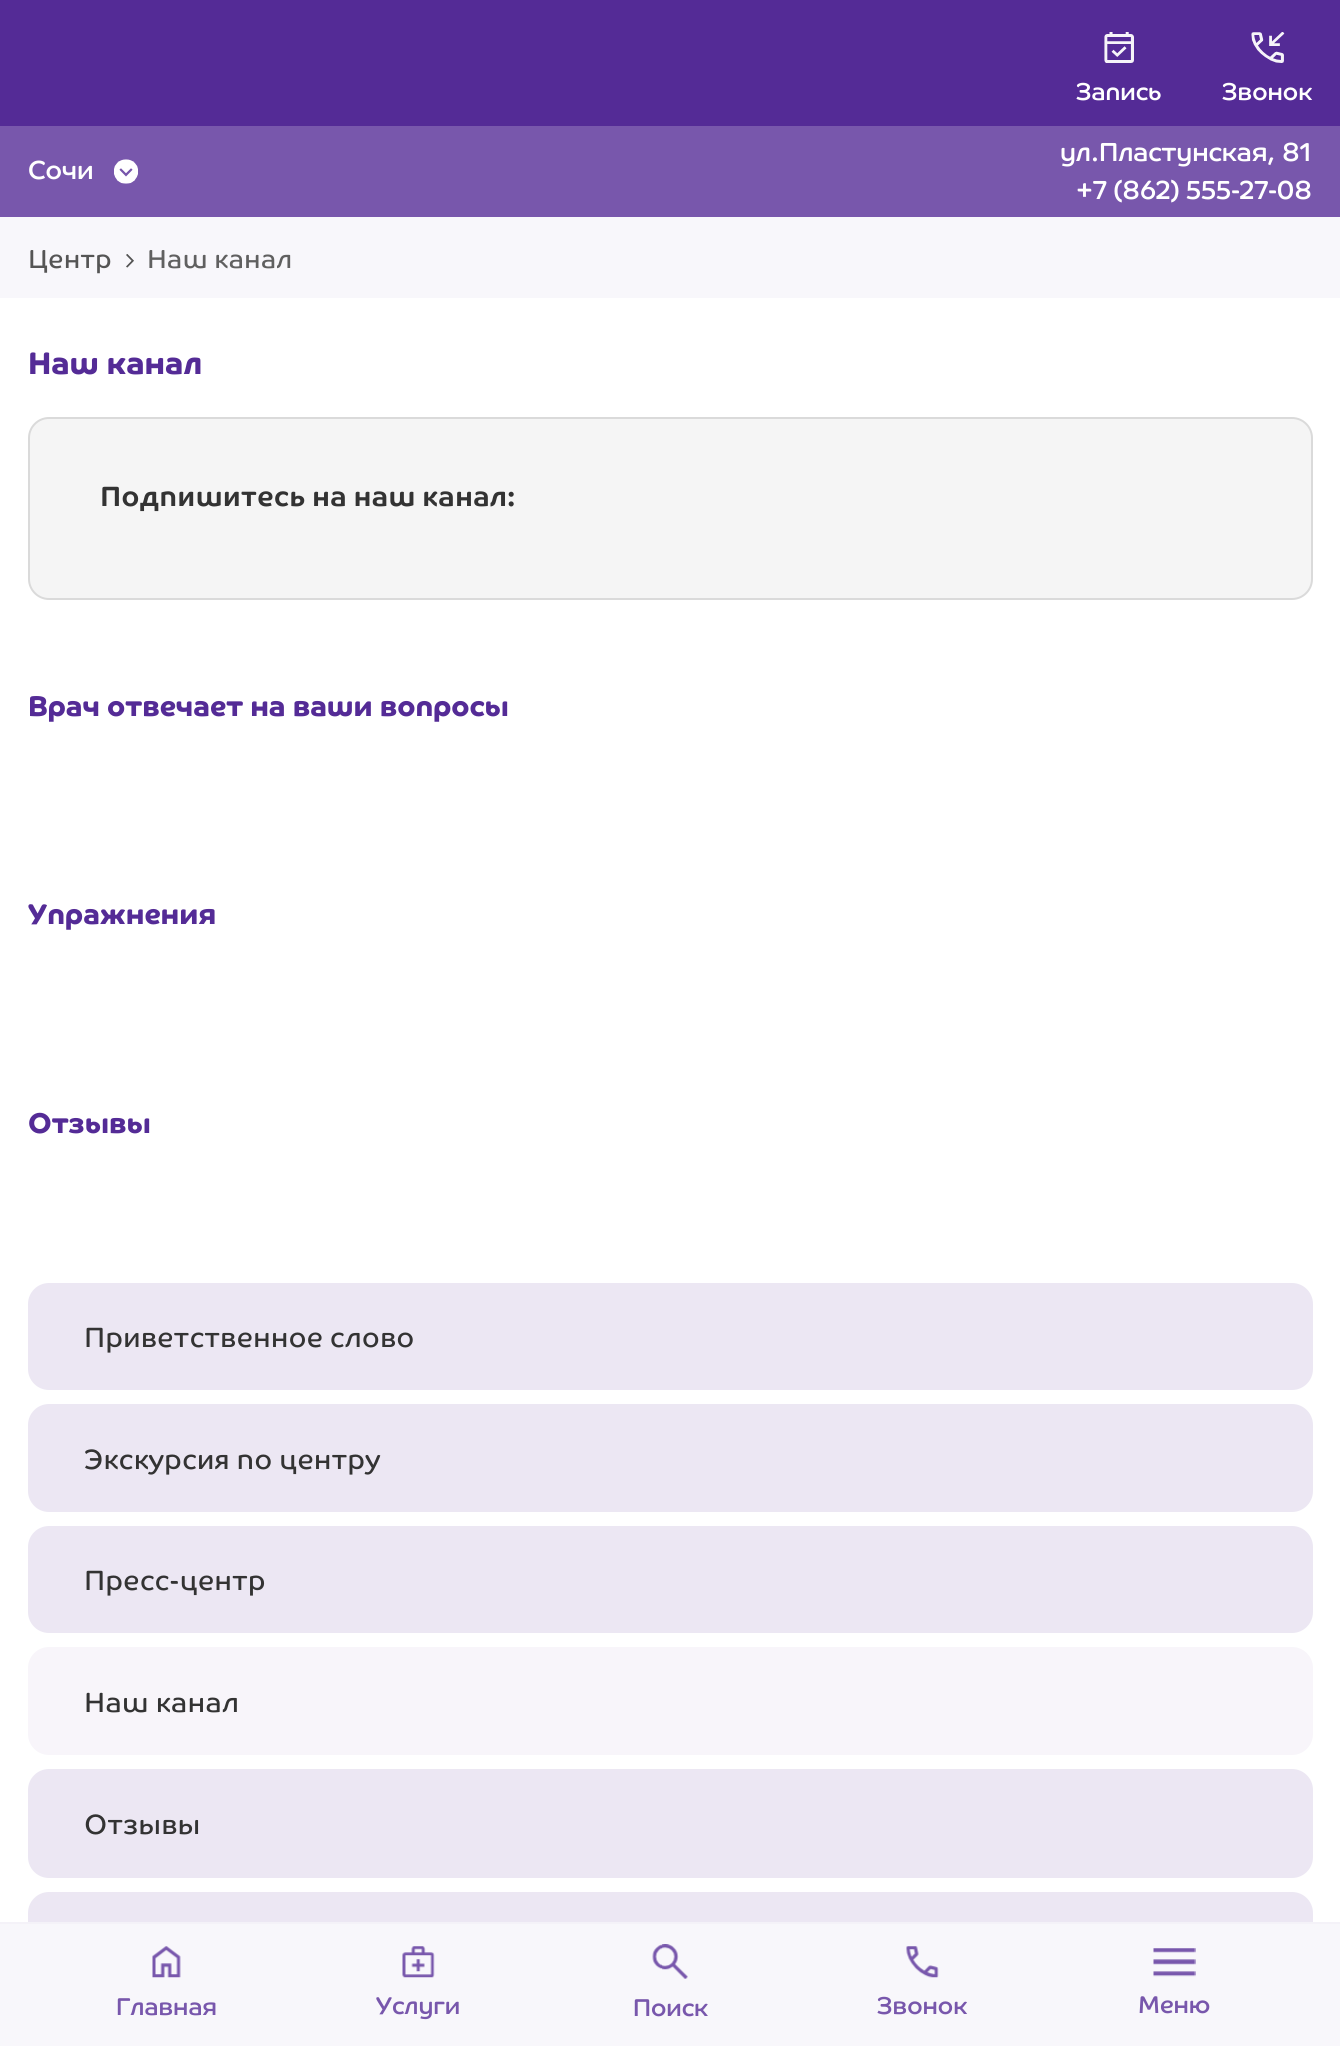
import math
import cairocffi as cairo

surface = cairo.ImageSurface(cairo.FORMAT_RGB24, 1340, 2046)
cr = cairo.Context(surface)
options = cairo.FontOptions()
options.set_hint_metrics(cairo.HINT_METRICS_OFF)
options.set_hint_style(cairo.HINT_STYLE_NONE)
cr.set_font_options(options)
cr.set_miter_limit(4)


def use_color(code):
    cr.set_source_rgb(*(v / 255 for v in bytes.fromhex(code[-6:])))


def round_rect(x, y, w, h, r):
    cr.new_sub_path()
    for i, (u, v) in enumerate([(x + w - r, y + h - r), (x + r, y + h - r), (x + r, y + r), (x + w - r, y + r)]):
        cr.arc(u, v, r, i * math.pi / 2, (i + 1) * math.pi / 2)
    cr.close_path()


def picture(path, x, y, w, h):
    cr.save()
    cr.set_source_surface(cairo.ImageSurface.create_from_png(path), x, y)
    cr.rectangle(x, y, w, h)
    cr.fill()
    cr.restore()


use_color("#ffffff")
cr.paint()
use_color("#542b96")
cr.rectangle(0, 0, 1340, 126)
cr.fill()
use_color("#7857ac")
cr.rectangle(0, 126, 1340, 91)
cr.fill()
picture("img1.png", 1104, 32, 30, 31)
cr.select_font_face("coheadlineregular")
cr.set_font_size(24.5)
use_color("#ffffff")
cr.move_to(1076, 100)
cr.show_text("Запись")
picture("img2.png", 1251, 32, 34, 31)
cr.move_to(1222, 100)
cr.show_text("Звонок")
cr.set_font_size(26.25)
cr.move_to(28, 179)
cr.show_text("Сочи")
picture("img3.png", 114, 159, 24, 25)
cr.move_to(1060, 161)
cr.show_text("ул.Пластунская, 81")
cr.move_to(1076, 199)
cr.show_text("+7 (862) 555-27-08")
use_color("#f8f7fb")
cr.rectangle(0, 217, 1340, 81)
cr.fill()
cr.select_font_face("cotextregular")
use_color("#555555")
cr.move_to(28, 268)
cr.show_text("Центр")
picture("img4.png", 126, 254, 8, 14)
use_color("#606060")
cr.move_to(147, 268)
cr.show_text("Наш канал")
cr.select_font_face("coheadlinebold", cairo.FONT_SLANT_NORMAL, cairo.FONT_WEIGHT_BOLD)
cr.set_font_size(31.5)
use_color("#542b96")
cr.move_to(28, 374)
cr.show_text("Наш канал")
use_color("#f5f5f5")
round_rect(29, 418, 1283, 181, 20)
cr.fill_preserve()
use_color("#dadada")
cr.stroke()
cr.select_font_face("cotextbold", cairo.FONT_SLANT_NORMAL, cairo.FONT_WEIGHT_BOLD)
cr.set_font_size(28)
use_color("#333333")
cr.move_to(100, 506)
cr.show_text("Подпишитесь на наш канал:")
cr.select_font_face("coheadlinebold", cairo.FONT_SLANT_NORMAL, cairo.FONT_WEIGHT_BOLD)
cr.set_font_size(28.75)
use_color("#542b96")
cr.move_to(28, 716)
cr.show_text("Врач отвечает на ваши вопросы")
cr.move_to(28, 924)
cr.show_text("Упражнения")
cr.move_to(28, 1133)
cr.show_text("Отзывы")
use_color("#ece7f3")
round_rect(28, 1283, 1285, 107, 21)
cr.fill()
cr.select_font_face("cotextregular")
cr.set_font_size(28)
use_color("#333333")
cr.move_to(84, 1347)
cr.show_text("Приветственное слово")
use_color("#ece7f3")
round_rect(28, 1404, 1285, 108, 21)
cr.fill()
use_color("#333333")
cr.move_to(84, 1469)
cr.show_text("Экскурсия по центру")
use_color("#ece7f3")
round_rect(28, 1526, 1285, 107, 21)
cr.fill()
use_color("#333333")
cr.move_to(84, 1590)
cr.show_text("Пресс-центр")
use_color("#f8f5fa")
round_rect(28, 1647, 1285, 108, 21)
cr.fill()
use_color("#333333")
cr.move_to(84, 1712)
cr.show_text("Наш канал")
use_color("#ece7f3")
round_rect(28, 1769, 1285, 109, 21)
cr.fill()
use_color("#333333")
cr.move_to(84, 1834)
cr.show_text("Отзывы")
use_color("#ece7f3")
round_rect(28, 1892, 1285, 107, 21)
cr.fill()
use_color("#f8f7fb")
cr.rectangle(0, 1924, 1340, 122)
cr.fill()
use_color("#f4f2f8")
cr.rectangle(0, 1922, 1340, 2)
cr.fill()
picture("img5.png", 152, 1946, 29, 32)
cr.select_font_face("coheadlineregular")
cr.set_font_size(24.5)
use_color("#7857ac")
cr.move_to(116, 2015)
cr.show_text("Главная")
picture("img6.png", 402, 1946, 33, 32)
cr.move_to(376, 2014)
cr.show_text("Услуги")
picture("img7.png", 652, 1944, 36, 35)
cr.move_to(633, 2016)
cr.show_text("Поиск")
picture("img8.png", 906, 1946, 33, 32)
cr.move_to(877, 2014)
cr.show_text("Звонок")
picture("img9.png", 1153, 1948, 43, 29)
cr.move_to(1138, 2013)
cr.show_text("Меню")
surface.write_to_png("result.png")
